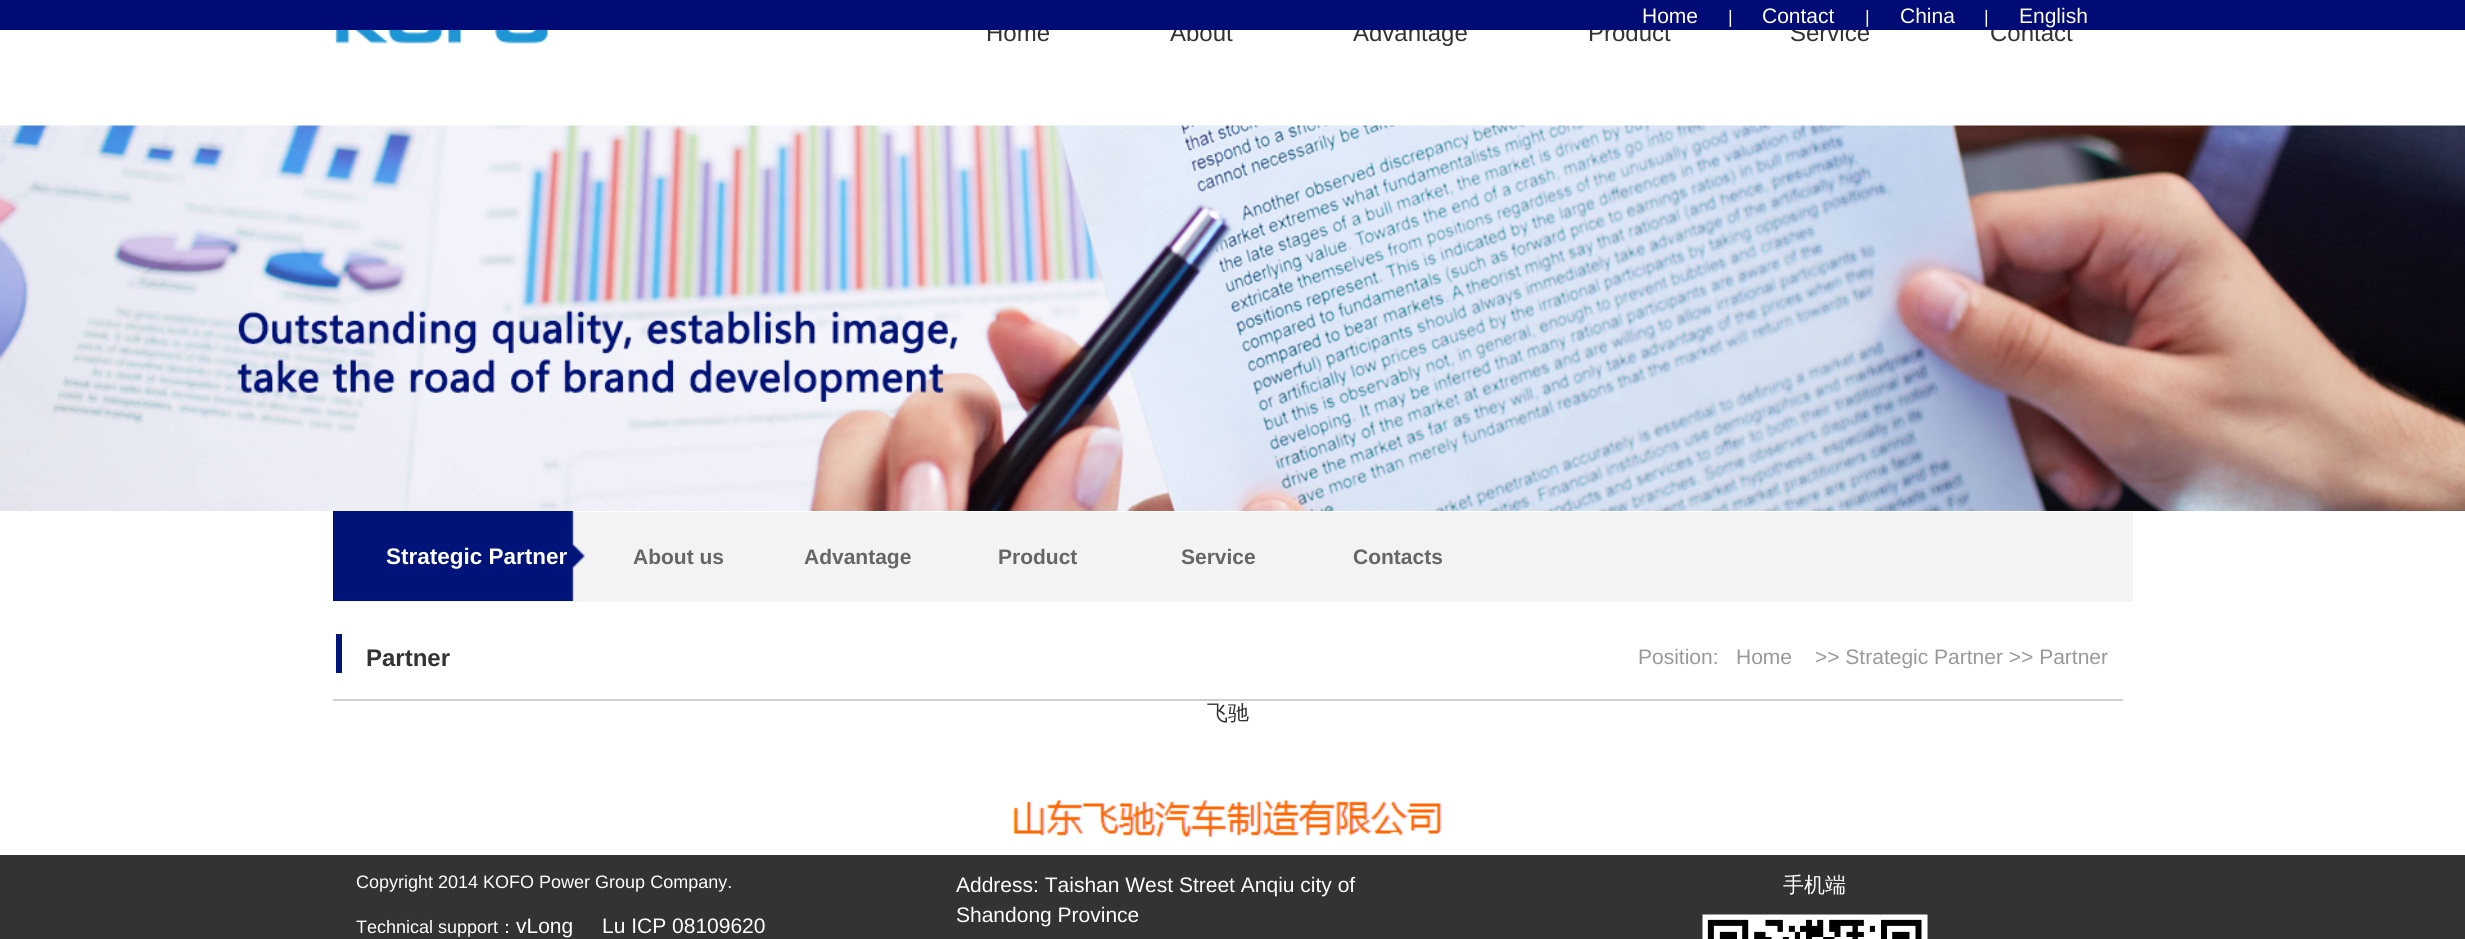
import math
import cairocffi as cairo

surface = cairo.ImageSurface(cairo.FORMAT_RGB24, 2465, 939)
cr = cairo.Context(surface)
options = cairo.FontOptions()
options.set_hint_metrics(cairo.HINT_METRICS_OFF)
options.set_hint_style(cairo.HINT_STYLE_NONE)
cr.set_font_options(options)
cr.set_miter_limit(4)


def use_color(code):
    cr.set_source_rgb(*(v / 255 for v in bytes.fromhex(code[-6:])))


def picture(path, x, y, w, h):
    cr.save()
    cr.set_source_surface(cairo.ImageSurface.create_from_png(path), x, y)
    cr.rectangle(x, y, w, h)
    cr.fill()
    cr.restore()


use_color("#ffffff")
cr.paint()
cr.select_font_face("Liberation Sans")
cr.set_font_size(24)
use_color("#333333")
cr.move_to(986, 41)
cr.show_text("Home")
cr.move_to(1170, 41)
cr.show_text("About")
cr.move_to(1353, 41)
cr.show_text("Advantage")
cr.move_to(1588, 41)
cr.show_text("Product")
cr.move_to(1790, 41)
cr.show_text("Service")
cr.move_to(1990, 41)
cr.show_text("Contact")
use_color("#000b76")
cr.rectangle(0, 0, 2465, 30)
cr.fill()
cr.set_font_size(21)
use_color("#ffffff")
cr.move_to(1642, 23)
cr.show_text("Home")
cr.set_font_size(18)
cr.move_to(1728, 23)
cr.show_text("|")
cr.set_font_size(21)
cr.move_to(1762, 23)
cr.show_text("Contact")
cr.set_font_size(18)
cr.move_to(1865, 23)
cr.show_text("|")
cr.set_font_size(21)
cr.move_to(1900, 23)
cr.show_text("China")
cr.set_font_size(18)
cr.move_to(1984, 23)
cr.show_text("|")
cr.set_font_size(21)
cr.move_to(2019, 23)
cr.show_text("English")
picture("img1.png", 335, 30, 213, 14)
picture("img2.png", 0, 125, 2465, 386)
use_color("#f3f3f3")
cr.rectangle(333, 512, 1800, 90)
cr.fill()
picture("img3.png", 333, 511, 252, 90)
cr.select_font_face("Liberation Sans", cairo.FONT_SLANT_NORMAL, cairo.FONT_WEIGHT_BOLD)
cr.set_font_size(22.5)
use_color("#ffffff")
cr.move_to(386, 564)
cr.show_text("Strategic Partner")
cr.set_font_size(21)
use_color("#666666")
cr.move_to(633, 564)
cr.show_text("About us")
cr.move_to(804, 564)
cr.show_text("Advantage")
cr.move_to(998, 564)
cr.show_text("Product")
cr.move_to(1181, 564)
cr.show_text("Service")
cr.move_to(1353, 564)
cr.show_text("Contacts")
use_color("#cfcfcf")
cr.rectangle(333, 699, 1790, 2)
cr.fill()
use_color("#001379")
cr.rectangle(336, 634, 6, 39)
cr.fill()
cr.set_font_size(24)
use_color("#333333")
cr.move_to(366, 666)
cr.show_text("Partner")
cr.select_font_face("Liberation Sans")
cr.set_font_size(21)
use_color("#999999")
cr.move_to(1638, 664)
cr.show_text("Position:")
cr.move_to(1736, 664)
cr.show_text("Home")
cr.move_to(1815, 664)
cr.show_text(">> Strategic Partner >> Partner")
cr.select_font_face("WenQuanYi Zen Hei Medium")
use_color("#333333")
cr.move_to(1207, 720)
cr.show_text("飞驰")
picture("img4.png", 1013, 800, 429, 37)
cr.rectangle(0, 855, 2465, 84)
cr.fill()
cr.select_font_face("Liberation Sans")
cr.set_font_size(18)
use_color("#ffffff")
cr.move_to(356, 888)
cr.show_text("Copyright 2014 KOFO Power Group Company.")
cr.move_to(356, 933)
cr.show_text("Technical support")
cr.select_font_face("WenQuanYi Zen Hei Medium")
cr.move_to(498, 933)
cr.show_text("：")
cr.select_font_face("Liberation Sans")
cr.set_font_size(21)
cr.move_to(516, 933)
cr.show_text("vLong")
cr.move_to(602, 933)
cr.show_text("Lu ICP 08109620")
cr.move_to(956, 892)
cr.show_text("Address: Taishan West Street Anqiu city of")
cr.move_to(956, 922)
cr.show_text("Shandong Province")
cr.select_font_face("WenQuanYi Zen Hei Medium")
cr.move_to(1783, 892)
cr.show_text("手机端")
picture("img5.png", 1702, 914, 226, 25)
surface.write_to_png("result.png")
